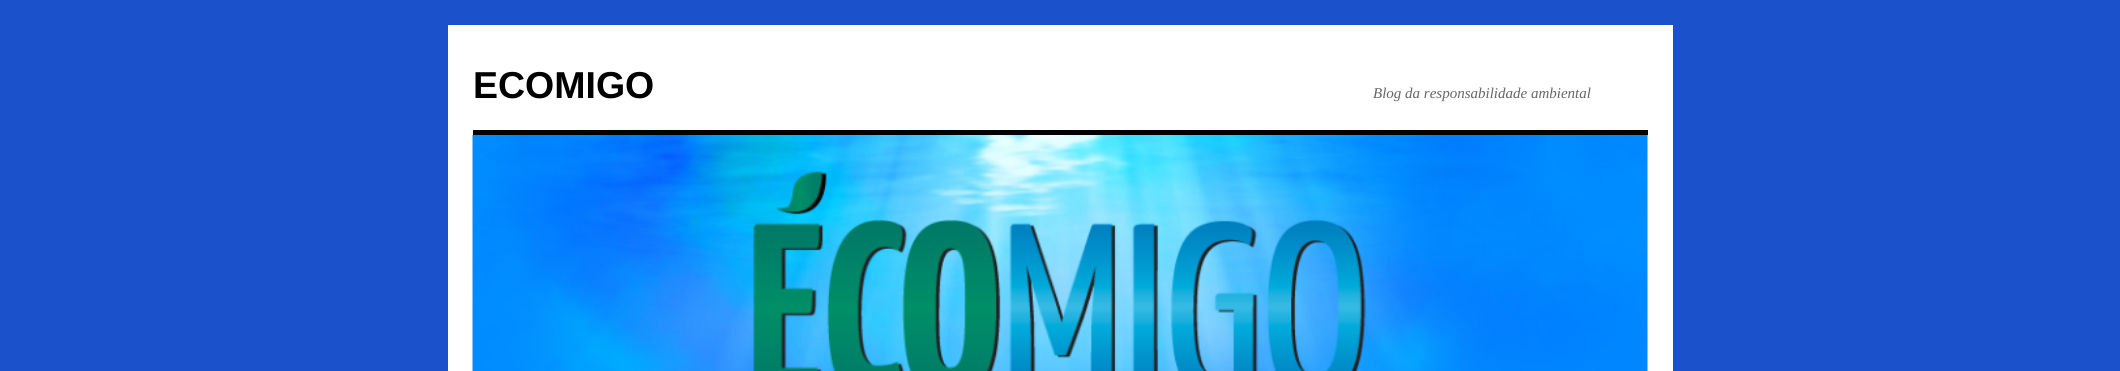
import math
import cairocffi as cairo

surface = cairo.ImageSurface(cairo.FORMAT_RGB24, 2120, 371)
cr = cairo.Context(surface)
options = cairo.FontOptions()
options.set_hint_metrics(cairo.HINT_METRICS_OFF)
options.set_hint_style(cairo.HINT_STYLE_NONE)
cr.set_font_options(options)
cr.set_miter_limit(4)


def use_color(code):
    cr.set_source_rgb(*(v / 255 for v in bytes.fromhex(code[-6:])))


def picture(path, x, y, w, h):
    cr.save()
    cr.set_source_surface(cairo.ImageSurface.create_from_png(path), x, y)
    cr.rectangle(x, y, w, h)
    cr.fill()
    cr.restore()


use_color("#1c51cc")
cr.paint()
use_color("#ffffff")
cr.rectangle(448, 25, 1225, 346)
cr.fill()
cr.select_font_face("Liberation Sans", cairo.FONT_SLANT_NORMAL, cairo.FONT_WEIGHT_BOLD)
cr.set_font_size(37.5)
use_color("#000000")
cr.move_to(473, 98)
cr.show_text("ECOMIGO")
cr.select_font_face("Liberation Serif", cairo.FONT_SLANT_ITALIC)
cr.set_font_size(15)
use_color("#666666")
cr.move_to(1373, 98)
cr.show_text("Blog da responsabilidade ambiental")
use_color("#000000")
cr.rectangle(473, 130, 1175, 5)
cr.fill()
picture("img1.png", 472, 135, 1176, 236)
surface.write_to_png("result.png")
